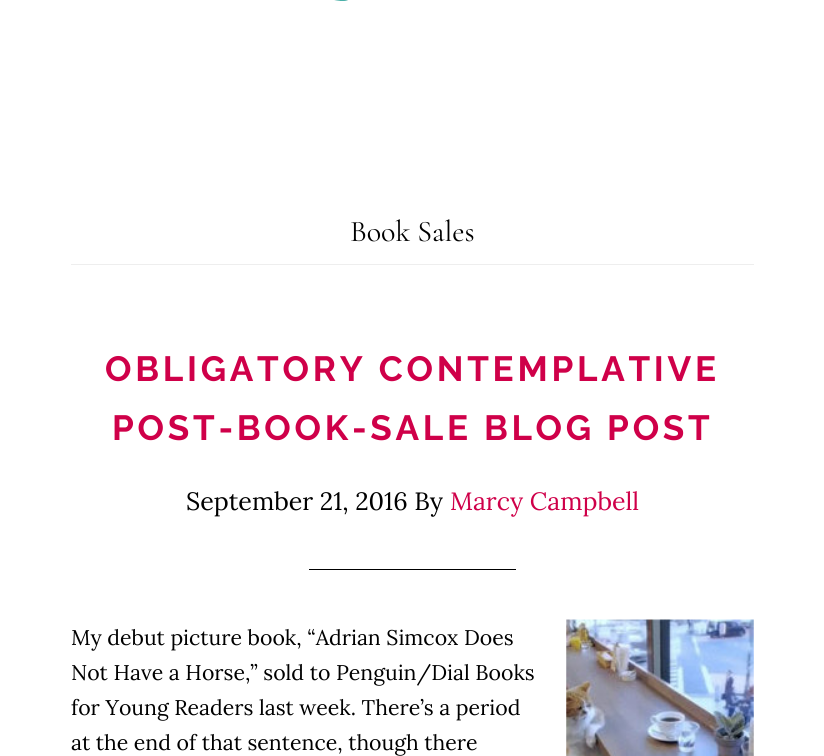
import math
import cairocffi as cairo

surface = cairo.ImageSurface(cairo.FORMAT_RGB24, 824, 756)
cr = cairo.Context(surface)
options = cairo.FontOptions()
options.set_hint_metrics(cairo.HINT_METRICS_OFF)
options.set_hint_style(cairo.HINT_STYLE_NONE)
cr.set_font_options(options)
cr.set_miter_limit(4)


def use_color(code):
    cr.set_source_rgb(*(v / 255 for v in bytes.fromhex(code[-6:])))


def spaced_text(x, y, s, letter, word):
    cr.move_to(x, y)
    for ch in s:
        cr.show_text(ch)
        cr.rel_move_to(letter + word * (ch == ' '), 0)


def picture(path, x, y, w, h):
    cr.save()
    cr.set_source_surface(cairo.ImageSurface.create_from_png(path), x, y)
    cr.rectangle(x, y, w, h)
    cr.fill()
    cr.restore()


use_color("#ffffff")
cr.paint()
picture("img1.png", 334, 0, 14, 1)
use_color("#eeeeee")
cr.rectangle(71, 264, 683, 1)
cr.fill()
cr.select_font_face("Cormorant Garamond")
cr.set_font_size(30)
use_color("#000000")
cr.move_to(350, 241)
cr.show_text("Book Sales")
cr.select_font_face("Raleway Thin")
cr.set_font_size(35)
use_color("#cf0049")
spaced_text(105, 381, "OBLIGATORY CONTEMPLATIVE", 3.75, 0)
spaced_text(112, 440, "POST-BOOK-SALE BLOG POST", 3.75, 0)
cr.select_font_face("Lora")
cr.set_font_size(25)
use_color("#000000")
cr.move_to(186, 510)
cr.show_text("September 21, 2016 By")
use_color("#cf0049")
cr.move_to(450, 510)
cr.show_text("Marcy Campbell")
use_color("#000000")
cr.rectangle(309, 569, 207, 1)
cr.fill()
cr.set_font_size(21.25)
cr.move_to(71, 645)
cr.show_text("My debut picture book, “Adrian Simcox Does")
cr.move_to(71, 680)
cr.show_text("Not Have a Horse,” sold to Penguin/Dial Books")
cr.move_to(71, 715)
cr.show_text("for Young Readers last week. There’s a period")
cr.move_to(71, 750)
cr.show_text("at the end of that sentence, though there")
picture("img2.png", 566, 619, 188, 137)
surface.write_to_png("result.png")
